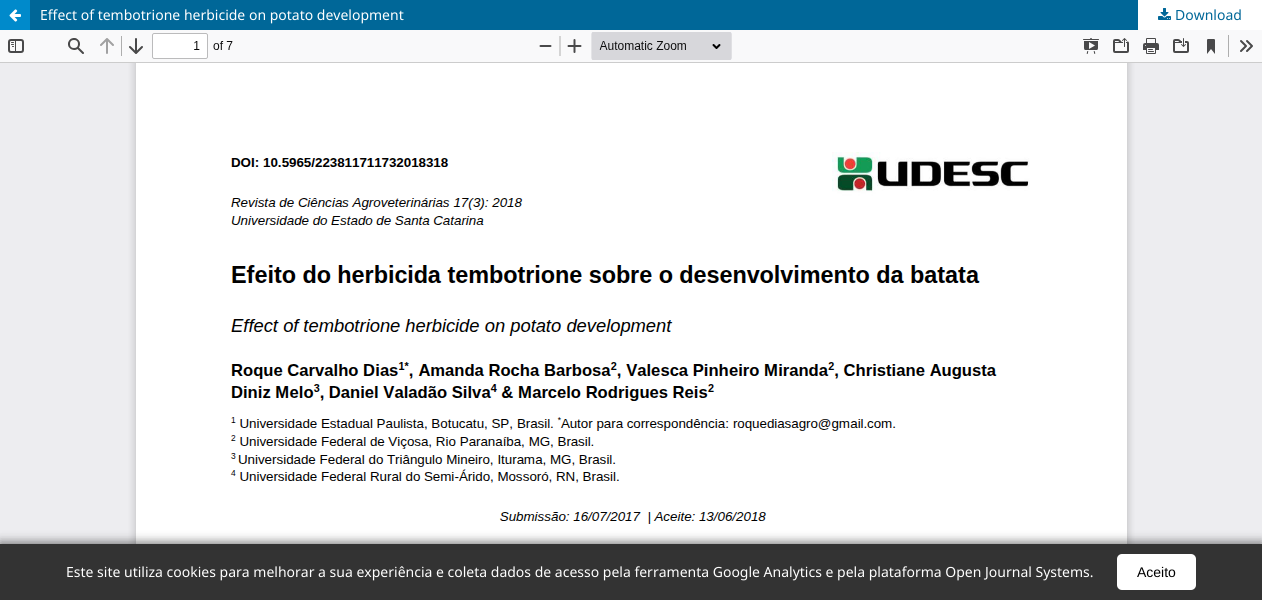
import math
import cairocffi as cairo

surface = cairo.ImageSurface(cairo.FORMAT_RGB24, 1262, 600)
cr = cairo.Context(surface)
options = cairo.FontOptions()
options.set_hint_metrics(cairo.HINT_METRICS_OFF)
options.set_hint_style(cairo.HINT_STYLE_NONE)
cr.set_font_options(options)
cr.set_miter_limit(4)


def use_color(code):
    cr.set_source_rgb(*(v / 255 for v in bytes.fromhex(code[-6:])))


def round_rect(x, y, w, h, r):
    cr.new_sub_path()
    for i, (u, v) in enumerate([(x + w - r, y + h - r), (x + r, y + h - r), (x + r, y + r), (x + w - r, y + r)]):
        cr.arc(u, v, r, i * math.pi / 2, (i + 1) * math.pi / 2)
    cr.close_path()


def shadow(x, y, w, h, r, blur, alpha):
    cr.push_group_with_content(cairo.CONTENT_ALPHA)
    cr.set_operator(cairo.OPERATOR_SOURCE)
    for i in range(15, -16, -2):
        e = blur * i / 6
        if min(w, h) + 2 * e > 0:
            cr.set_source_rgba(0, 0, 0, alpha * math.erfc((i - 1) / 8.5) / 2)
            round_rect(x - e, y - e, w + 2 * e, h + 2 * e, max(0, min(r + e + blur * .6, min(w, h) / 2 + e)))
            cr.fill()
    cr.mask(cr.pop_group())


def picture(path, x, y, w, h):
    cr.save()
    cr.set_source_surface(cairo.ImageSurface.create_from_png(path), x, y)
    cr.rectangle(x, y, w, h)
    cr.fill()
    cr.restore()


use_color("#ffffff")
cr.paint()
use_color("#006798")
cr.rectangle(30, 0, 1108, 30)
cr.fill()
use_color("#008acb")
cr.rectangle(0, 0, 30, 30)
cr.fill()
picture("img1.png", 9, 9, 12, 13)
cr.select_font_face("Noto Sans")
cr.set_font_size(14)
use_color("#ffffff")
cr.move_to(40, 20)
cr.show_text("Effect of tembotrione herbicide on potato development")
picture("img2.png", 1158, 8, 13, 12)
use_color("#006798")
cr.move_to(1175, 20)
cr.show_text("Download")
picture("img3.png", 0, 30, 1262, 514)
use_color("#000000")
shadow(0, 542, 1262, 56, 0, 5, 0.5)
use_color("#333333")
cr.rectangle(0, 544, 1262, 56)
cr.fill()
use_color("#ffffff")
cr.move_to(66, 577)
cr.show_text("Este site utiliza cookies para melhorar a sua experiência e coleta dados de acesso pela ferramenta Google Analytics e pela plataforma Open Journal Systems.")
round_rect(1117, 554, 79, 36, 5)
cr.fill()
cr.select_font_face("Liberation Sans")
use_color("#000000")
cr.move_to(1137, 577)
cr.show_text("Aceito")
surface.write_to_png("result.png")
